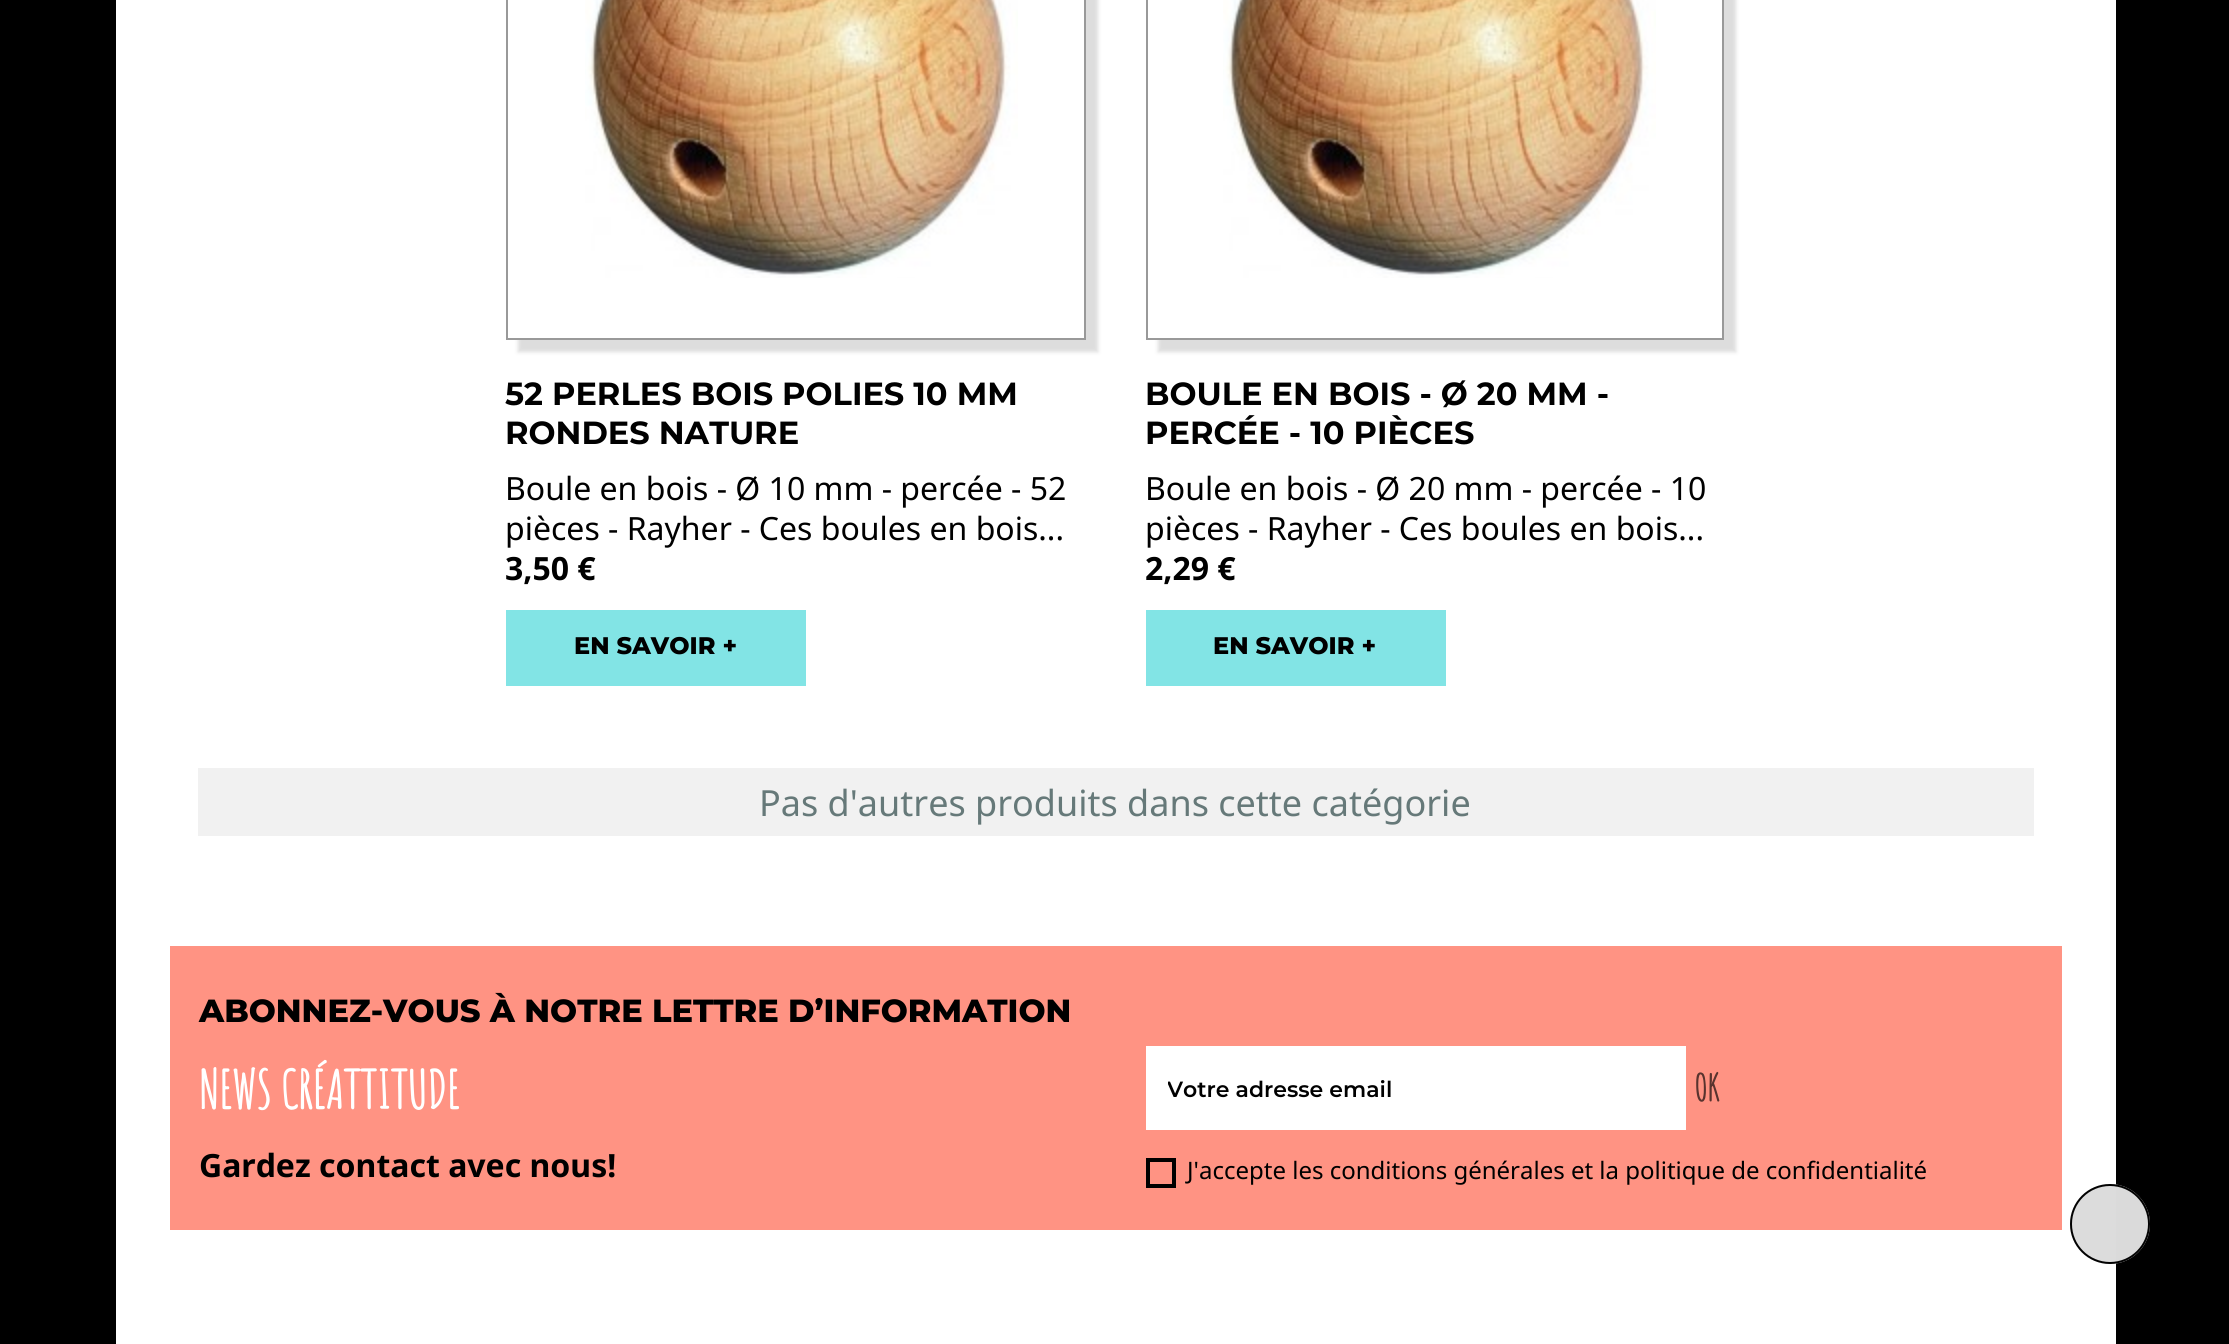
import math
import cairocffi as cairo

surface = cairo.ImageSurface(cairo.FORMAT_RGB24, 2229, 1344)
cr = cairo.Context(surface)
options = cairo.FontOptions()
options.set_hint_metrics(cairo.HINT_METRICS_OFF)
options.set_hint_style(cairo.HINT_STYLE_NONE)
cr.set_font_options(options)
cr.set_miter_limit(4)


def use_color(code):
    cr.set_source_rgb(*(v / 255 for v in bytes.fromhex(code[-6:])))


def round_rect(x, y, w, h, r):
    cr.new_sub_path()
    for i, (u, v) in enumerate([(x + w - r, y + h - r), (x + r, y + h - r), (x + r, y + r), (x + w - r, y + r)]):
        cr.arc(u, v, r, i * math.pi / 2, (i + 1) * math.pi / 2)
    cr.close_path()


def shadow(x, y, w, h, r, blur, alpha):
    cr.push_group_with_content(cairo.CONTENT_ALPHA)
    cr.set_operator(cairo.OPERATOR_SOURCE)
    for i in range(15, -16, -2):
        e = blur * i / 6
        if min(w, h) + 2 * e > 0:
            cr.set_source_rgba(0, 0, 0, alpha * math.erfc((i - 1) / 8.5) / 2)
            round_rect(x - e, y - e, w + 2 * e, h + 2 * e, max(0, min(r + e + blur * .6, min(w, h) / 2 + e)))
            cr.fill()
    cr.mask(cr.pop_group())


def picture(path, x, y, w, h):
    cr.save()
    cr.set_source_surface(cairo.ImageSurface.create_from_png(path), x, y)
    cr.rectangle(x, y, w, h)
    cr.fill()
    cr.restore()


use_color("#000000")
cr.paint()
use_color("#ffffff")
cr.rectangle(116, 0, 2000, 1344)
cr.fill()
cr.save()
cr.set_fill_rule(cairo.FILL_RULE_EVEN_ODD)
cr.new_path()
cr.move_to(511, 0)
cr.line_to(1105, 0)
cr.line_to(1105, 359)
cr.line_to(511, 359)
cr.close_path()
cr.move_to(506, -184)
cr.line_to(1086, -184)
cr.line_to(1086, 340)
cr.line_to(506, 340)
cr.close_path()
cr.clip()
use_color("#dddddd")
shadow(518, -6, 580, 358, 0, 2, 1)
cr.restore()
cr.rectangle(507, -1, 578, 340)
use_color("#999999")
cr.stroke()
picture("img1.png", 585, 0, 433, 278)
cr.select_font_face("Montserrat", cairo.FONT_SLANT_NORMAL, cairo.FONT_WEIGHT_BOLD)
cr.set_font_size(32)
use_color("#000000")
cr.move_to(505, 405)
cr.show_text("52 PERLES BOIS POLIES 10 MM")
cr.move_to(505, 444)
cr.show_text("RONDES NATURE")
cr.select_font_face("Noto Sans")
cr.move_to(505, 500)
cr.show_text("Boule en bois - Ø 10 mm - percée - 52")
cr.move_to(505, 540)
cr.show_text("pièces - Rayher - Ces boules en bois...")
cr.select_font_face("Noto Sans", cairo.FONT_SLANT_NORMAL, cairo.FONT_WEIGHT_BOLD)
cr.move_to(505, 580)
cr.show_text("3,50 €")
use_color("#82e4e5")
cr.rectangle(506, 610, 300, 76)
cr.fill()
cr.select_font_face("Montserrat ExtraBold")
cr.set_font_size(24)
use_color("#000000")
cr.move_to(574, 654)
cr.show_text("EN SAVOIR +")
cr.save()
cr.set_fill_rule(cairo.FILL_RULE_EVEN_ODD)
cr.new_path()
cr.move_to(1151, 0)
cr.line_to(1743, 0)
cr.line_to(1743, 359)
cr.line_to(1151, 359)
cr.close_path()
cr.move_to(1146, -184)
cr.line_to(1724, -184)
cr.line_to(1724, 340)
cr.line_to(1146, 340)
cr.close_path()
cr.clip()
use_color("#dddddd")
shadow(1158, -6, 578, 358, 0, 2, 1)
cr.restore()
cr.rectangle(1147, -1, 576, 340)
use_color("#999999")
cr.stroke()
picture("img1.png", 1223, 0, 433, 278)
cr.select_font_face("Montserrat", cairo.FONT_SLANT_NORMAL, cairo.FONT_WEIGHT_BOLD)
cr.set_font_size(32)
use_color("#000000")
cr.move_to(1145, 405)
cr.show_text("BOULE EN BOIS - Ø 20 MM -")
cr.move_to(1145, 444)
cr.show_text("PERCÉE - 10 PIÈCES")
cr.select_font_face("Noto Sans")
cr.move_to(1145, 500)
cr.show_text("Boule en bois - Ø 20 mm - percée - 10")
cr.move_to(1145, 540)
cr.show_text("pièces - Rayher - Ces boules en bois...")
cr.select_font_face("Noto Sans", cairo.FONT_SLANT_NORMAL, cairo.FONT_WEIGHT_BOLD)
cr.move_to(1145, 580)
cr.show_text("2,29 €")
use_color("#82e4e5")
cr.rectangle(1146, 610, 300, 76)
cr.fill()
cr.select_font_face("Montserrat ExtraBold")
cr.set_font_size(24)
use_color("#000000")
cr.move_to(1213, 654)
cr.show_text("EN SAVOIR +")
use_color("#f1f1f1")
cr.rectangle(198, 768, 1836, 68)
cr.fill()
cr.select_font_face("Noto Sans")
cr.set_font_size(36)
use_color("#667979")
cr.move_to(759, 816)
cr.show_text("Pas d'autres produits dans cette catégorie")
use_color("#ff9383")
cr.rectangle(170, 946, 1892, 284)
cr.fill()
cr.select_font_face("Montserrat ExtraBold")
cr.set_font_size(32)
use_color("#000000")
cr.move_to(199, 1022)
cr.show_text("ABONNEZ-VOUS À NOTRE LETTRE D’INFORMATION")
cr.select_font_face("Amatic SC", cairo.FONT_SLANT_NORMAL, cairo.FONT_WEIGHT_BOLD)
cr.set_font_size(52)
use_color("#ffffff")
cr.move_to(199, 1109)
cr.show_text("NEWS CRÉATTITUDE")
cr.select_font_face("Noto Sans", cairo.FONT_SLANT_NORMAL, cairo.FONT_WEIGHT_BOLD)
cr.set_font_size(32)
use_color("#000000")
cr.move_to(199, 1177)
cr.show_text("Gardez contact avec nous!")
use_color("#ffffff")
cr.rectangle(1146, 1046, 540, 84)
cr.fill()
cr.save()
cr.rectangle(1168, 1074, 496, 28)
cr.clip()
cr.select_font_face("Montserrat SemiBold")
cr.set_font_size(22)
use_color("#000000")
cr.move_to(1167, 1097)
cr.show_text("Votre adresse email")
cr.restore()
cr.select_font_face("Amatic SC", cairo.FONT_SLANT_NORMAL, cairo.FONT_WEIGHT_BOLD)
cr.set_font_size(36)
use_color("#59332e")
cr.move_to(1694, 1101)
cr.show_text("OK")
cr.rectangle(1148, 1160, 26, 26)
use_color("#000000")
cr.set_line_width(4)
cr.stroke()
cr.select_font_face("Noto Sans")
cr.set_font_size(24)
cr.move_to(1187, 1179)
cr.show_text("J'accepte les conditions générales et la politique de confidentialité")
cr.set_source_rgba(0.863, 0.863, 0.863, 0.99)
cr.new_path()
cr.arc(2110, 1224, 40, 0, 2 * math.pi)
cr.fill()
cr.arc(2110, 1224, 39, 0, 2 * math.pi)
cr.set_source_rgba(0, 0, 0, 0.99)
cr.set_line_width(2)
cr.stroke()
surface.write_to_png("result.png")
